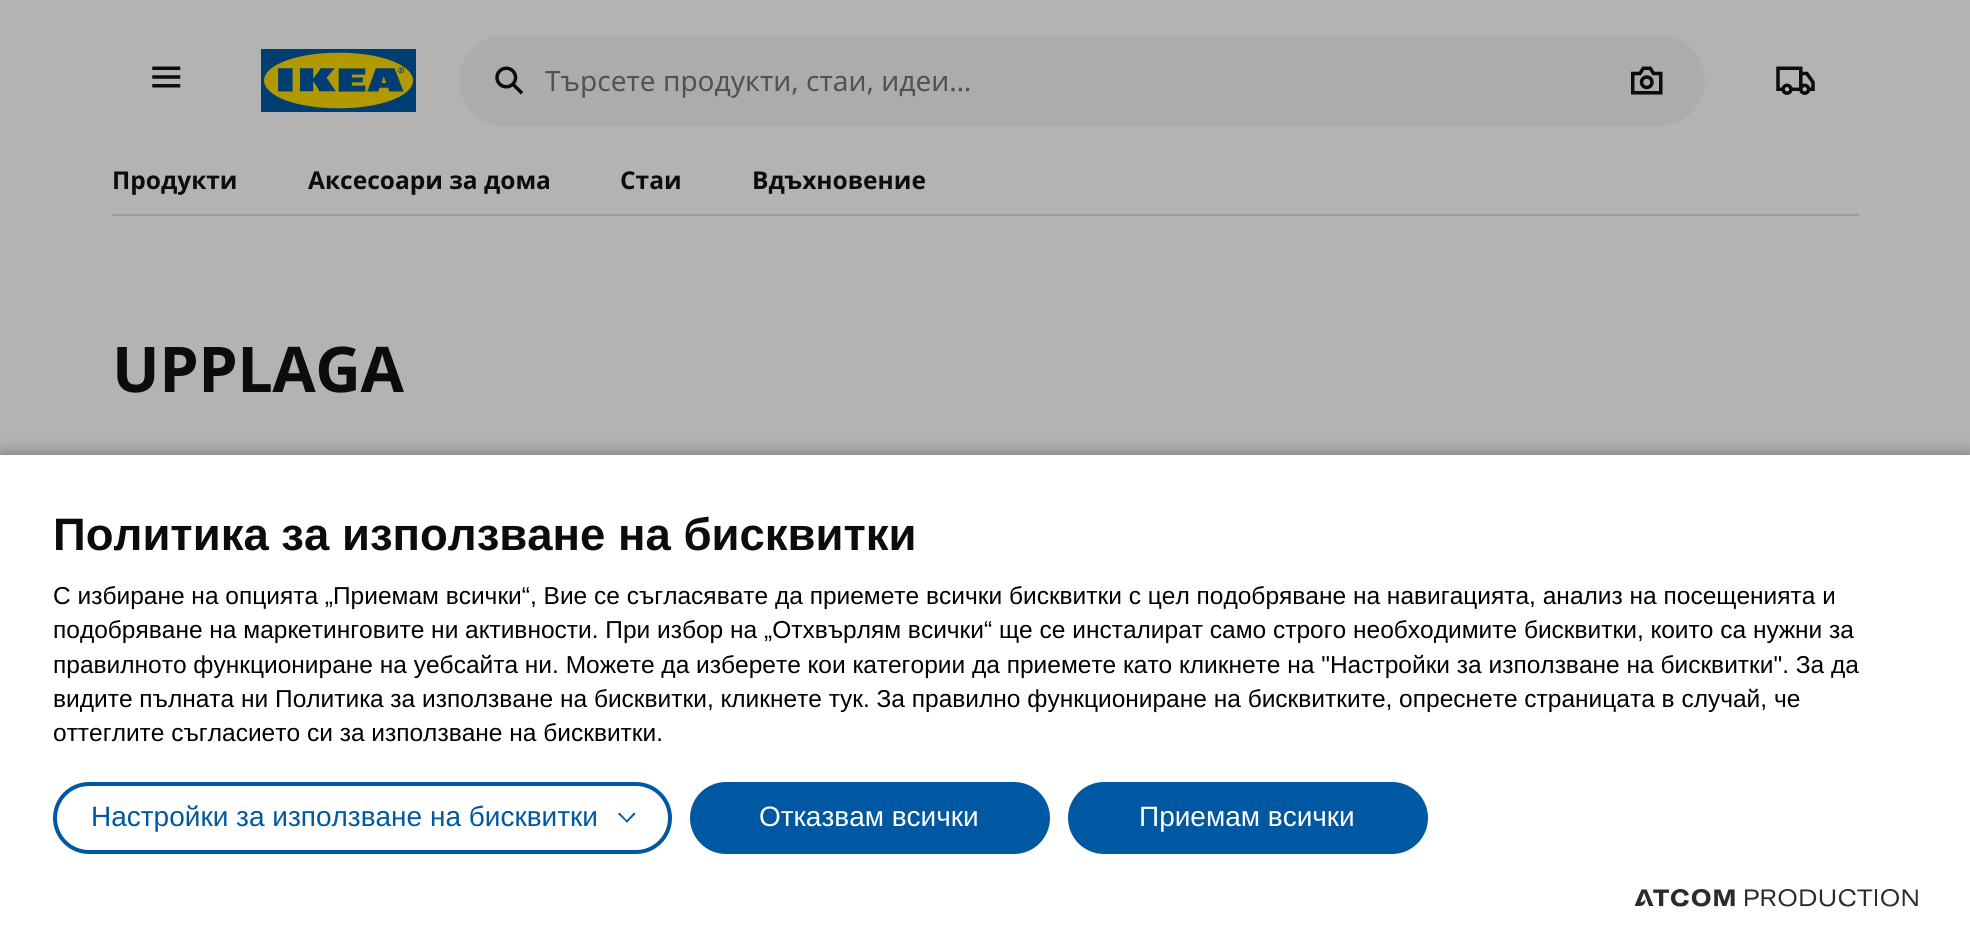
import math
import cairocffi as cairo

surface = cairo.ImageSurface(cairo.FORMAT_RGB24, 1970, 935)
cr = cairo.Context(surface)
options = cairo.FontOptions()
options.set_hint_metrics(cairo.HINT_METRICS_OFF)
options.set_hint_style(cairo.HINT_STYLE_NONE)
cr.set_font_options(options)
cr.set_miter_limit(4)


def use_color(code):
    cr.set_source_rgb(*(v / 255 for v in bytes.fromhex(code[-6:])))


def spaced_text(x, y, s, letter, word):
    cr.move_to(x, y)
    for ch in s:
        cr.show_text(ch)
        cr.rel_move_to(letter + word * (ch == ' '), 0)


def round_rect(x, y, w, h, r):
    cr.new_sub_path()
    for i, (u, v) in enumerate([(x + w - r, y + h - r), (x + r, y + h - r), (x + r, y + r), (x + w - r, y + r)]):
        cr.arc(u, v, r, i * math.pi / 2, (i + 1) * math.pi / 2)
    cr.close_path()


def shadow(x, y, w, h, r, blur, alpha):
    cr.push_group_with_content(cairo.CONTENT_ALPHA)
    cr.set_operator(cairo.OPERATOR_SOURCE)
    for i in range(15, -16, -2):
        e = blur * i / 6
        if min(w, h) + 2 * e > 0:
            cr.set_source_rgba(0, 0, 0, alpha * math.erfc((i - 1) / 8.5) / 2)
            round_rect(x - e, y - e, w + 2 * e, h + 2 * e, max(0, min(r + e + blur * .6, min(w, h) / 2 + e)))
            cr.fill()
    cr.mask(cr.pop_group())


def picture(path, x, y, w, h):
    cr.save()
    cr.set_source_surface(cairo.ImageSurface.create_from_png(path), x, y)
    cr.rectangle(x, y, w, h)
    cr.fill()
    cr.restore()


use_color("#b3b3b3")
cr.paint()
picture("img1.png", 152, 66, 29, 22)
picture("img2.png", 261, 49, 155, 63)
use_color("#acacac")
round_rect(459, 35, 1246, 91, 45.5)
cr.fill()
picture("img3.png", 495, 66, 29, 29)
cr.select_font_face("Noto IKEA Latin")
cr.set_font_size(28)
use_color("#525252")
cr.move_to(545, 91)
cr.show_text("Търсете продукти, стаи, идеи…")
picture("img4.png", 1631, 66, 32, 29)
picture("img5.png", 1776, 66, 39, 29)
use_color("#9c9c9c")
cr.rectangle(112, 214, 1747, 2)
cr.fill()
cr.select_font_face("Noto IKEA Latin", cairo.FONT_SLANT_NORMAL, cairo.FONT_WEIGHT_BOLD)
cr.set_font_size(24.5)
use_color("#0c0c0c")
cr.move_to(112, 189)
cr.show_text("Продукти")
cr.move_to(308, 189)
cr.show_text("Аксесоари за дома")
cr.move_to(620, 189)
cr.show_text("Стаи")
cr.move_to(752, 189)
cr.show_text("Вдъхновение")
cr.set_font_size(63)
spaced_text(112, 392, "UPPLAGA", -0.5, 0)
use_color("#000000")
shadow(0, 455, 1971, 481, 0, 9, 0.37)
use_color("#ffffff")
cr.rectangle(0, 455, 1970, 480)
cr.fill()
cr.select_font_face("Liberation Sans", cairo.FONT_SLANT_NORMAL, cairo.FONT_WEIGHT_BOLD)
cr.set_font_size(45.5)
use_color("#0c0c0c")
cr.move_to(53, 550)
cr.show_text("Политика за използване на бисквитки")
cr.select_font_face("Liberation Sans")
cr.set_font_size(24.5)
use_color("#000000")
cr.move_to(53, 604)
cr.show_text("С избиране на опцията „Приемам всички“, Вие се съгласявате да приемете всички бисквитки с цел подобряване на навигацията, анализ на посещенията и")
cr.move_to(53, 638)
cr.show_text("подобряване на маркетинговите ни активности. При избор на „Отхвърлям всички“ ще се инсталират само строго необходимитe бисквитки, които са нужни за")
cr.move_to(53, 673)
cr.show_text("правилното функциониране на уебсайта ни. Можете да изберете кои категории да приемете като кликнете на \"Настройки за използване на бисквитки\". За да")
cr.move_to(53, 707)
cr.show_text("видите пълната ни Политика за използване на бисквитки, кликнете тук. За правилно функциониране на бисквитките, опреснете страницата в случай, че")
cr.move_to(53, 741)
cr.show_text("оттеглите съгласието си за използване на бисквитки.")
round_rect(55, 784, 615, 68, 34)
use_color("#0058a3")
cr.set_line_width(4)
cr.stroke()
cr.set_font_size(28)
cr.move_to(91, 826)
cr.show_text("Настройки за използване на бисквитки")
cr.new_path()
cr.move_to(634, 812.5)
cr.line_to(635.5, 814)
cr.line_to(627, 822.5)
cr.line_to(625.5, 821.5)
cr.close_path()
cr.fill()
cr.new_path()
cr.move_to(619.5, 812.5)
cr.line_to(628, 821.5)
cr.line_to(627, 822.5)
cr.line_to(618, 814)
cr.close_path()
cr.fill()
round_rect(692, 784, 356, 68, 34)
cr.fill_preserve()
cr.stroke()
use_color("#ffffff")
cr.move_to(759, 826)
cr.show_text("Отказвам всички")
use_color("#0058a3")
round_rect(1070, 784, 356, 68, 34)
cr.fill_preserve()
cr.stroke()
use_color("#ffffff")
cr.move_to(1139, 826)
cr.show_text("Приемам всички")
picture("img6.png", 1635, 889, 283, 18)
surface.write_to_png("result.png")
